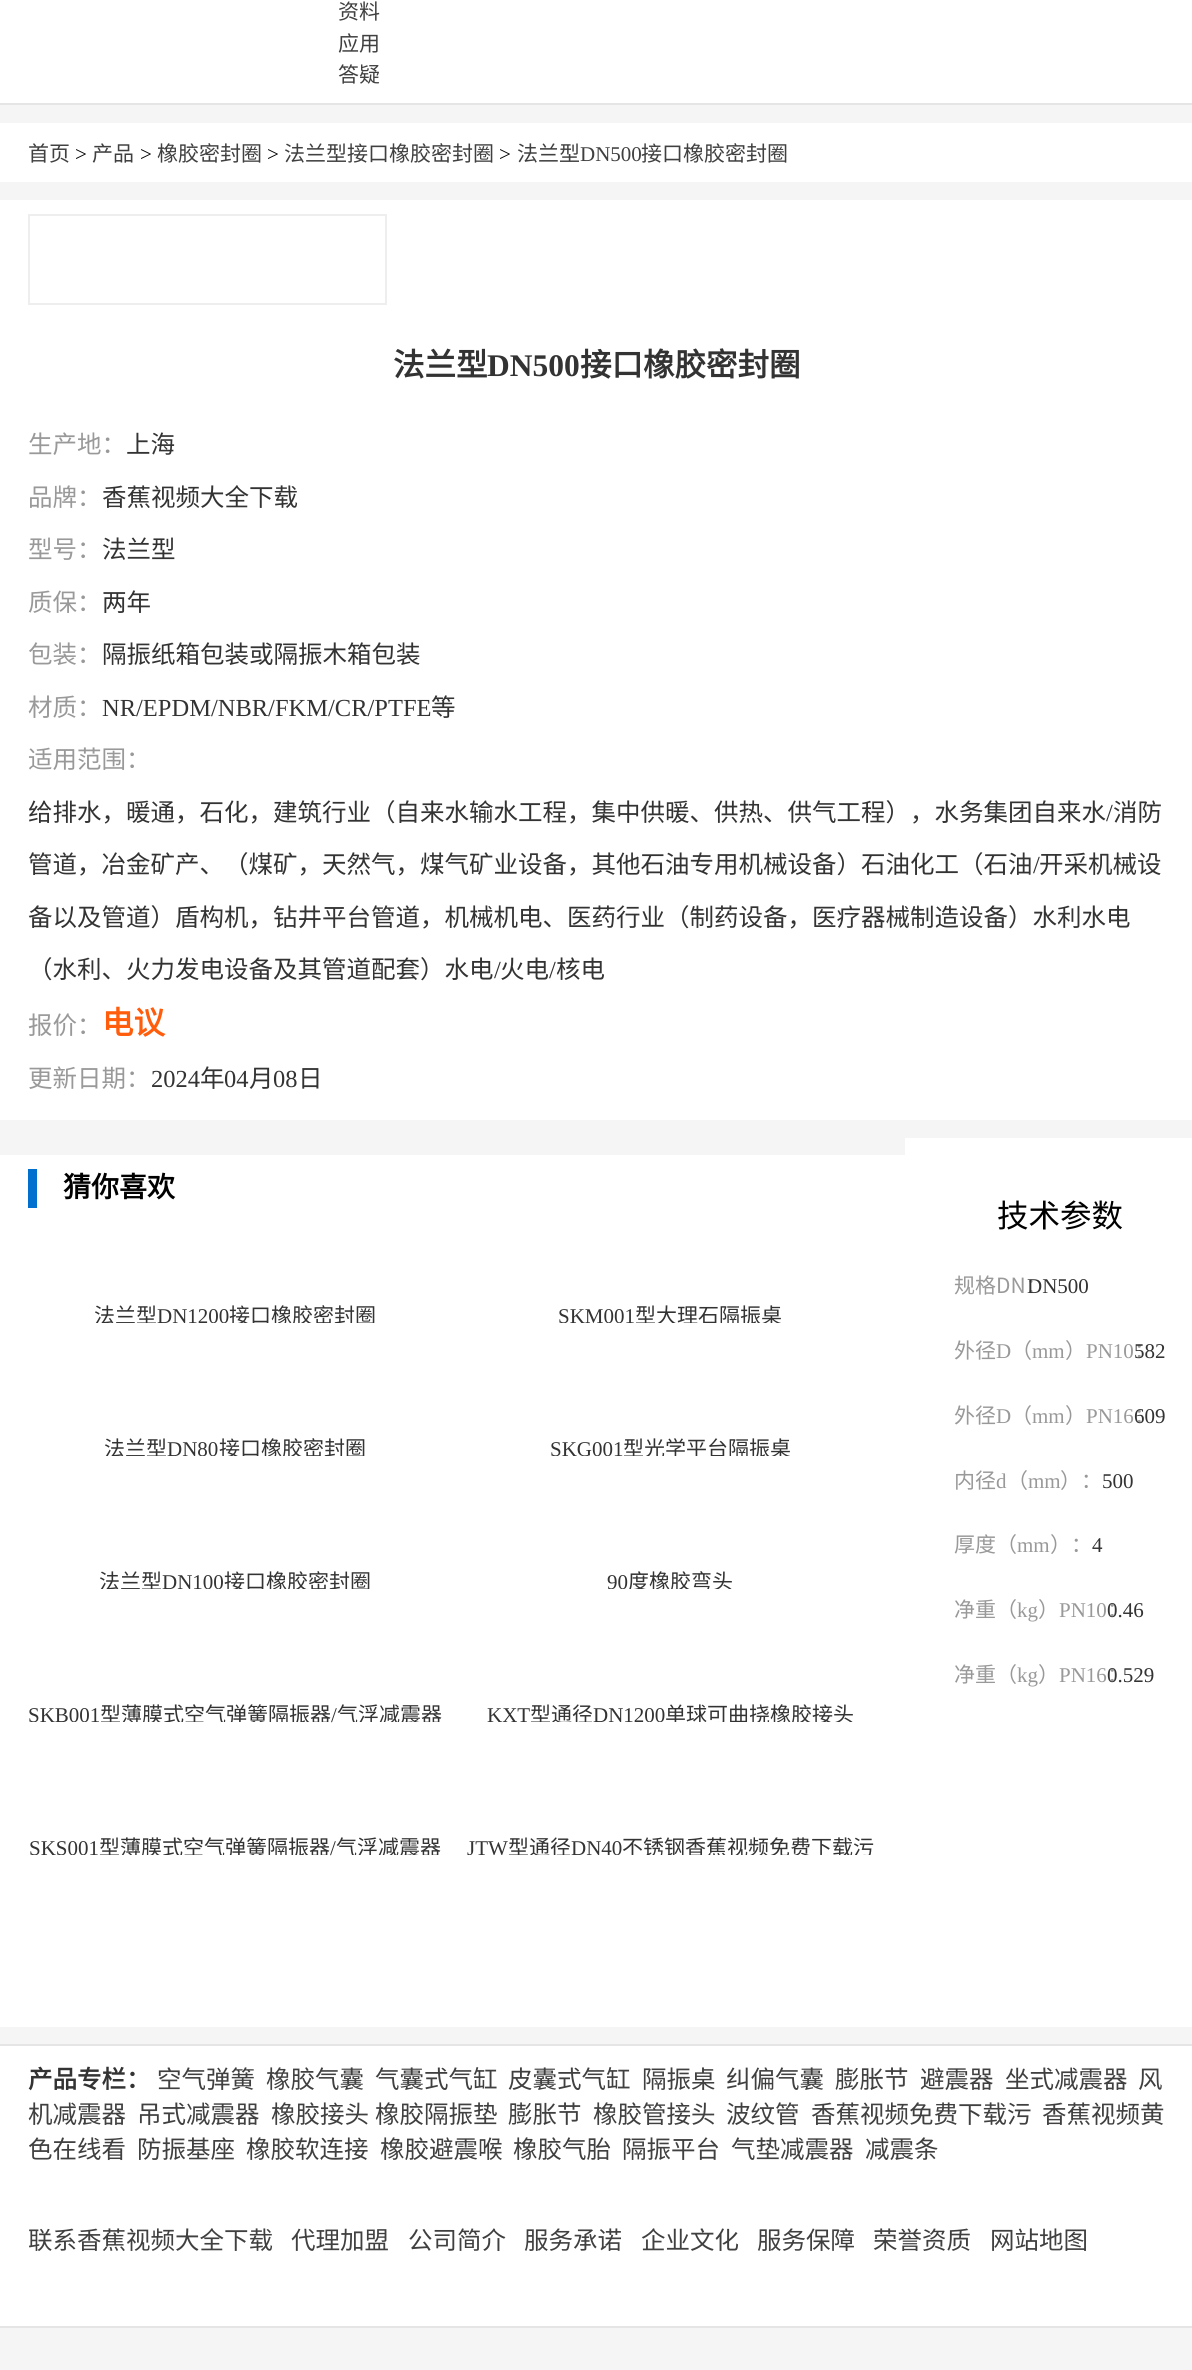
import math
import cairocffi as cairo

surface = cairo.ImageSurface(cairo.FORMAT_RGB24, 1192, 2370)
cr = cairo.Context(surface)
options = cairo.FontOptions()
options.set_hint_metrics(cairo.HINT_METRICS_OFF)
options.set_hint_style(cairo.HINT_STYLE_NONE)
cr.set_font_options(options)
cr.set_miter_limit(4)


def use_color(code):
    cr.set_source_rgb(*(v / 255 for v in bytes.fromhex(code[-6:])))


use_color("#f5f5f5")
cr.paint()
use_color("#ffffff")
cr.rectangle(0, 0, 1192, 103)
cr.fill()
use_color("#e5e5e5")
cr.rectangle(0, 103, 1192, 2)
cr.fill()
cr.select_font_face("Noto Sans CJK SC")
cr.set_font_size(21)
use_color("#404040")
cr.move_to(338, 19)
cr.show_text("资料")
cr.move_to(338, 51)
cr.show_text("应用")
cr.move_to(338, 82)
cr.show_text("答疑")
use_color("#e5e5e5")
cr.rectangle(0, 2044, 1192, 2)
cr.fill()
use_color("#ffffff")
cr.rectangle(0, 123, 1192, 59)
cr.fill()
use_color("#404040")
cr.move_to(28, 161)
cr.show_text("首页")
cr.select_font_face("Liberation Serif")
use_color("#000000")
cr.move_to(75, 161)
cr.show_text(">")
cr.select_font_face("Noto Sans CJK SC")
use_color("#404040")
cr.move_to(92, 161)
cr.show_text("产品")
cr.select_font_face("Liberation Serif")
use_color("#000000")
cr.move_to(140, 161)
cr.show_text(">")
cr.select_font_face("Noto Sans CJK SC")
use_color("#404040")
cr.move_to(157, 161)
cr.show_text("橡胶密封圈")
cr.select_font_face("Liberation Serif")
use_color("#000000")
cr.move_to(267, 161)
cr.show_text(">")
cr.select_font_face("Noto Sans CJK SC")
use_color("#404040")
cr.move_to(284, 161)
cr.show_text("法兰型接口橡胶密封圈")
cr.select_font_face("Liberation Serif")
use_color("#000000")
cr.move_to(499, 161)
cr.show_text(">")
cr.select_font_face("Noto Sans CJK SC")
use_color("#404040")
cr.move_to(517, 161)
cr.show_text("法兰型")
cr.select_font_face("Liberation Serif")
cr.move_to(580, 161)
cr.show_text("DN500")
cr.select_font_face("Noto Sans CJK SC")
cr.move_to(641, 161)
cr.show_text("接口橡胶密封圈")
use_color("#ffffff")
cr.rectangle(0, 200, 1192, 920)
cr.fill()
cr.rectangle(29, 215, 357, 89)
use_color("#eeeeee")
cr.stroke()
cr.select_font_face("Noto Sans CJK SC", cairo.FONT_SLANT_NORMAL, cairo.FONT_WEIGHT_BOLD)
cr.set_font_size(31.5)
use_color("#333333")
cr.move_to(393, 376)
cr.show_text("法兰型")
cr.select_font_face("Liberation Serif", cairo.FONT_SLANT_NORMAL, cairo.FONT_WEIGHT_BOLD)
cr.move_to(487, 376)
cr.show_text("DN500")
cr.select_font_face("Noto Sans CJK SC", cairo.FONT_SLANT_NORMAL, cairo.FONT_WEIGHT_BOLD)
cr.move_to(580, 376)
cr.show_text("接口橡胶密封圈")
cr.select_font_face("Noto Sans CJK SC")
cr.set_font_size(24.5)
use_color("#999999")
cr.move_to(28, 453)
cr.show_text("生产地：")
use_color("#333333")
cr.move_to(126, 453)
cr.show_text("上海")
use_color("#999999")
cr.move_to(28, 506)
cr.show_text("品牌：")
use_color("#333333")
cr.move_to(102, 506)
cr.show_text("香蕉视频大全下载")
use_color("#999999")
cr.move_to(28, 558)
cr.show_text("型号：")
use_color("#333333")
cr.move_to(102, 558)
cr.show_text("法兰型")
use_color("#999999")
cr.move_to(28, 611)
cr.show_text("质保：")
use_color("#333333")
cr.move_to(102, 611)
cr.show_text("两年")
use_color("#999999")
cr.move_to(28, 663)
cr.show_text("包装：")
use_color("#333333")
cr.move_to(102, 663)
cr.show_text("隔振纸箱包装或隔振木箱包装")
use_color("#999999")
cr.move_to(28, 716)
cr.show_text("材质：")
cr.select_font_face("Liberation Serif")
use_color("#333333")
cr.move_to(102, 716)
cr.show_text("NR/EPDM/NBR/FKM/CR/PTFE")
cr.select_font_face("Noto Sans CJK SC")
cr.move_to(431, 716)
cr.show_text("等")
use_color("#999999")
cr.move_to(28, 768)
cr.show_text("适用范围：")
use_color("#333333")
cr.move_to(28, 821)
cr.show_text("给排水，暖通，石化，建筑行业（自来水输水工程，集中供暖、供热、供气工程），水务集团自来水")
cr.select_font_face("Liberation Serif")
cr.move_to(1106, 821)
cr.show_text("/")
cr.select_font_face("Noto Sans CJK SC")
cr.move_to(1113, 821)
cr.show_text("消防")
cr.move_to(28, 873)
cr.show_text("管道，冶金矿产、（煤矿，天然气，煤气矿业设备，其他石油专用机械设备）石油化工（石油")
cr.select_font_face("Liberation Serif")
cr.move_to(1033, 873)
cr.show_text("/")
cr.select_font_face("Noto Sans CJK SC")
cr.move_to(1039, 873)
cr.show_text("开采机械设")
cr.move_to(28, 926)
cr.show_text("备以及管道）盾构机，钻井平台管道，机械机电、医药行业（制药设备，医疗器械制造设备）水利水电")
cr.move_to(28, 978)
cr.show_text("（水利、火力发电设备及其管道配套）水电")
cr.select_font_face("Liberation Serif")
cr.move_to(494, 978)
cr.show_text("/")
cr.select_font_face("Noto Sans CJK SC")
cr.move_to(500, 978)
cr.show_text("火电")
cr.select_font_face("Liberation Serif")
cr.move_to(549, 978)
cr.show_text("/")
cr.select_font_face("Noto Sans CJK SC")
cr.move_to(556, 978)
cr.show_text("核电")
use_color("#999999")
cr.move_to(28, 1034)
cr.show_text("报价：")
cr.select_font_face("Noto Sans CJK SC", cairo.FONT_SLANT_NORMAL, cairo.FONT_WEIGHT_BOLD)
cr.set_font_size(31.5)
use_color("#ff5d0c")
cr.move_to(102, 1034)
cr.show_text("电议")
cr.select_font_face("Noto Sans CJK SC")
cr.set_font_size(24.5)
use_color("#999999")
cr.move_to(28, 1087)
cr.show_text("更新日期：")
cr.select_font_face("Liberation Serif")
use_color("#333333")
cr.move_to(151, 1087)
cr.show_text("2024")
cr.select_font_face("Noto Sans CJK SC")
cr.move_to(200, 1087)
cr.show_text("年")
cr.select_font_face("Liberation Serif")
cr.move_to(224, 1087)
cr.show_text("04")
cr.select_font_face("Noto Sans CJK SC")
cr.move_to(249, 1087)
cr.show_text("月")
cr.select_font_face("Liberation Serif")
cr.move_to(273, 1087)
cr.show_text("08")
cr.select_font_face("Noto Sans CJK SC")
cr.move_to(298, 1087)
cr.show_text("日")
use_color("#ffffff")
cr.rectangle(0, 1138, 1192, 889)
cr.fill()
use_color("#f5f5f5")
cr.rectangle(0, 1138, 905, 17)
cr.fill()
use_color("#0070ce")
cr.rectangle(28, 1169, 9, 39)
cr.fill()
cr.select_font_face("Noto Sans CJK SC", cairo.FONT_SLANT_NORMAL, cairo.FONT_WEIGHT_BOLD)
cr.set_font_size(28)
use_color("#000000")
cr.move_to(63, 1197)
cr.show_text("猜你喜欢")
cr.save()
cr.rectangle(28, 1299, 415, 24)
cr.clip()
cr.select_font_face("Noto Sans CJK SC")
cr.set_font_size(21)
use_color("#333333")
cr.move_to(94, 1323)
cr.show_text("法兰型")
cr.select_font_face("Liberation Serif")
cr.move_to(157, 1323)
cr.show_text("DN1200")
cr.select_font_face("Noto Sans CJK SC")
cr.move_to(229, 1323)
cr.show_text("接口橡胶密封圈")
cr.restore()
cr.save()
cr.rectangle(464, 1299, 413, 24)
cr.clip()
cr.select_font_face("Liberation Serif")
cr.set_font_size(21)
use_color("#333333")
cr.move_to(558, 1323)
cr.show_text("SKM001")
cr.select_font_face("Noto Sans CJK SC")
cr.move_to(635, 1323)
cr.show_text("型大理石隔振桌")
cr.restore()
cr.save()
cr.rectangle(28, 1432, 415, 24)
cr.clip()
cr.select_font_face("Noto Sans CJK SC")
cr.set_font_size(21)
use_color("#333333")
cr.move_to(104, 1456)
cr.show_text("法兰型")
cr.select_font_face("Liberation Serif")
cr.move_to(167, 1456)
cr.show_text("DN80")
cr.select_font_face("Noto Sans CJK SC")
cr.move_to(219, 1456)
cr.show_text("接口橡胶密封圈")
cr.restore()
cr.save()
cr.rectangle(464, 1432, 413, 24)
cr.clip()
cr.select_font_face("Liberation Serif")
cr.set_font_size(21)
use_color("#333333")
cr.move_to(550, 1456)
cr.show_text("SKG001")
cr.select_font_face("Noto Sans CJK SC")
cr.move_to(623, 1456)
cr.show_text("型光学平台隔振桌")
cr.restore()
cr.save()
cr.rectangle(28, 1565, 415, 24)
cr.clip()
cr.select_font_face("Noto Sans CJK SC")
cr.set_font_size(21)
use_color("#333333")
cr.move_to(99, 1589)
cr.show_text("法兰型")
cr.select_font_face("Liberation Serif")
cr.move_to(162, 1589)
cr.show_text("DN100")
cr.select_font_face("Noto Sans CJK SC")
cr.move_to(224, 1589)
cr.show_text("接口橡胶密封圈")
cr.restore()
cr.save()
cr.rectangle(464, 1565, 413, 24)
cr.clip()
cr.select_font_face("Liberation Serif")
cr.set_font_size(21)
use_color("#333333")
cr.move_to(607, 1589)
cr.show_text("90")
cr.select_font_face("Noto Sans CJK SC")
cr.move_to(628, 1589)
cr.show_text("度橡胶弯头")
cr.restore()
cr.save()
cr.rectangle(28, 1698, 415, 24)
cr.clip()
cr.select_font_face("Liberation Serif")
cr.set_font_size(21)
use_color("#333333")
cr.move_to(28, 1722)
cr.show_text("SKB001")
cr.select_font_face("Noto Sans CJK SC")
cr.move_to(100, 1722)
cr.show_text("型薄膜式空气弹簧隔振器")
cr.restore()
cr.select_font_face("Liberation Serif")
cr.set_font_size(21)
use_color("#333333")
cr.move_to(331, 1722)
cr.show_text("/")
cr.save()
cr.rectangle(28, 1698, 415, 24)
cr.clip()
cr.select_font_face("Noto Sans CJK SC")
cr.move_to(337, 1722)
cr.show_text("气浮减震器")
cr.restore()
cr.move_to(487, 1722)
cr.show_text("KXT")
cr.save()
cr.rectangle(464, 1698, 413, 24)
cr.clip()
cr.select_font_face("Noto Sans CJK SC")
cr.move_to(530, 1722)
cr.show_text("型通径")
cr.select_font_face("Liberation Serif")
cr.move_to(593, 1722)
cr.show_text("DN1200")
cr.select_font_face("Noto Sans CJK SC")
cr.move_to(665, 1722)
cr.show_text("单球可曲挠橡胶接头")
cr.restore()
cr.save()
cr.rectangle(28, 1831, 415, 24)
cr.clip()
cr.move_to(29, 1855)
cr.show_text("SKS001")
cr.select_font_face("Noto Sans CJK SC")
cr.move_to(99, 1855)
cr.show_text("型薄膜式空气弹簧隔振器")
cr.restore()
cr.move_to(330, 1855)
cr.show_text("/")
cr.save()
cr.rectangle(28, 1831, 415, 24)
cr.clip()
cr.select_font_face("Noto Sans CJK SC")
cr.move_to(336, 1855)
cr.show_text("气浮减震器")
cr.restore()
cr.save()
cr.rectangle(464, 1831, 413, 24)
cr.clip()
cr.move_to(467, 1855)
cr.show_text("JTW")
cr.select_font_face("Noto Sans CJK SC")
cr.move_to(508, 1855)
cr.show_text("型通径")
cr.select_font_face("Liberation Serif")
cr.move_to(571, 1855)
cr.show_text("DN40")
cr.select_font_face("Noto Sans CJK SC")
cr.move_to(622, 1855)
cr.show_text("不锈钢香蕉视频免费下载污")
cr.restore()
cr.select_font_face("Noto Sans CJK SC")
cr.set_font_size(31.5)
use_color("#000000")
cr.move_to(997, 1227)
cr.show_text("技术参数")
cr.set_font_size(21)
use_color("#999999")
cr.move_to(954, 1293)
cr.show_text("规格DN：")
cr.select_font_face("Liberation Serif")
use_color("#333333")
cr.move_to(1027, 1293)
cr.show_text("DN500")
cr.select_font_face("Noto Sans CJK SC")
use_color("#999999")
cr.move_to(954, 1358)
cr.show_text("外径")
cr.select_font_face("Liberation Serif")
cr.move_to(996, 1358)
cr.show_text("D")
cr.select_font_face("Noto Sans CJK SC")
cr.move_to(1011, 1358)
cr.show_text("（")
cr.move_to(1065, 1358)
cr.show_text("）")
cr.select_font_face("Liberation Serif")
cr.move_to(1086, 1358)
cr.show_text("PN10")
cr.select_font_face("Noto Sans CJK SC")
cr.move_to(1134, 1358)
cr.show_text("：")
cr.select_font_face("Liberation Serif")
use_color("#333333")
cr.move_to(1134, 1358)
cr.show_text("582")
use_color("#999999")
cr.move_to(1032, 1358)
cr.show_text("mm")
cr.select_font_face("Noto Sans CJK SC")
cr.move_to(954, 1423)
cr.show_text("外径")
cr.select_font_face("Liberation Serif")
cr.move_to(996, 1423)
cr.show_text("D")
cr.select_font_face("Noto Sans CJK SC")
cr.move_to(1011, 1423)
cr.show_text("（")
cr.move_to(1065, 1423)
cr.show_text("）")
cr.select_font_face("Liberation Serif")
cr.move_to(1086, 1423)
cr.show_text("PN16")
cr.select_font_face("Noto Sans CJK SC")
cr.move_to(1134, 1423)
cr.show_text("：")
cr.select_font_face("Liberation Serif")
use_color("#333333")
cr.move_to(1134, 1423)
cr.show_text("609")
use_color("#999999")
cr.move_to(1032, 1423)
cr.show_text("mm")
cr.select_font_face("Noto Sans CJK SC")
cr.move_to(954, 1488)
cr.show_text("内径")
cr.select_font_face("Liberation Serif")
cr.move_to(996, 1488)
cr.show_text("d")
cr.select_font_face("Noto Sans CJK SC")
cr.move_to(1007, 1488)
cr.show_text("（")
cr.select_font_face("Liberation Serif")
cr.move_to(1028, 1488)
cr.show_text("mm")
cr.select_font_face("Noto Sans CJK SC")
cr.move_to(1060, 1488)
cr.show_text("）：")
cr.select_font_face("Liberation Serif")
use_color("#333333")
cr.move_to(1102, 1488)
cr.show_text("500")
cr.select_font_face("Noto Sans CJK SC")
use_color("#999999")
cr.move_to(954, 1552)
cr.show_text("厚度（")
cr.select_font_face("Liberation Serif")
cr.move_to(1017, 1552)
cr.show_text("mm")
cr.select_font_face("Noto Sans CJK SC")
cr.move_to(1050, 1552)
cr.show_text("）：")
cr.select_font_face("Liberation Serif")
use_color("#333333")
cr.move_to(1092, 1552)
cr.show_text("4")
cr.select_font_face("Noto Sans CJK SC")
use_color("#999999")
cr.move_to(954, 1617)
cr.show_text("净重（")
cr.select_font_face("Liberation Serif")
cr.move_to(1017, 1617)
cr.show_text("kg")
cr.select_font_face("Noto Sans CJK SC")
cr.move_to(1038, 1617)
cr.show_text("）")
cr.select_font_face("Liberation Serif")
cr.move_to(1059, 1617)
cr.show_text("PN10")
cr.select_font_face("Noto Sans CJK SC")
cr.move_to(1107, 1617)
cr.show_text("：")
cr.select_font_face("Liberation Serif")
use_color("#333333")
cr.move_to(1107, 1617)
cr.show_text("0.46")
cr.select_font_face("Noto Sans CJK SC")
use_color("#999999")
cr.move_to(954, 1682)
cr.show_text("净重（")
cr.select_font_face("Liberation Serif")
cr.move_to(1017, 1682)
cr.show_text("kg")
cr.select_font_face("Noto Sans CJK SC")
cr.move_to(1038, 1682)
cr.show_text("）")
cr.select_font_face("Liberation Serif")
cr.move_to(1059, 1682)
cr.show_text("PN16")
cr.select_font_face("Noto Sans CJK SC")
cr.move_to(1107, 1682)
cr.show_text("：")
cr.select_font_face("Liberation Serif")
use_color("#333333")
cr.move_to(1107, 1682)
cr.show_text("0.529")
use_color("#ffffff")
cr.rectangle(0, 2046, 1192, 280)
cr.fill()
use_color("#e5e5e5")
cr.rectangle(0, 2326, 1192, 2)
cr.fill()
cr.select_font_face("Noto Sans CJK SC", cairo.FONT_SLANT_NORMAL, cairo.FONT_WEIGHT_BOLD)
cr.set_font_size(24.5)
use_color("#333333")
cr.move_to(28, 2088)
cr.show_text("产品专栏：")
cr.select_font_face("Noto Sans CJK SC")
use_color("#404040")
cr.move_to(157, 2088)
cr.show_text("空气弹簧")
cr.move_to(266, 2088)
cr.show_text("橡胶气囊")
cr.move_to(375, 2088)
cr.show_text("气囊式气缸")
cr.move_to(508, 2088)
cr.show_text("皮囊式气缸")
cr.move_to(642, 2088)
cr.show_text("隔振桌")
cr.move_to(726, 2088)
cr.show_text("纠偏气囊")
cr.move_to(835, 2088)
cr.show_text("膨胀节")
cr.move_to(920, 2088)
cr.show_text("避震器")
cr.move_to(1005, 2088)
cr.show_text("坐式减震器")
cr.move_to(1138, 2088)
cr.show_text("风")
cr.move_to(28, 2123)
cr.show_text("机减震器")
cr.move_to(137, 2123)
cr.show_text("吊式减震器")
cr.move_to(271, 2123)
cr.show_text("橡胶接头")
cr.move_to(375, 2123)
cr.show_text("橡胶隔振垫")
cr.move_to(508, 2123)
cr.show_text("膨胀节")
cr.move_to(593, 2123)
cr.show_text("橡胶管接头")
cr.move_to(726, 2123)
cr.show_text("波纹管")
cr.move_to(811, 2123)
cr.show_text("香蕉视频免费下载污")
cr.move_to(1042, 2123)
cr.show_text("香蕉视频黄")
cr.move_to(28, 2158)
cr.show_text("色在线看")
cr.move_to(137, 2158)
cr.show_text("防振基座")
cr.move_to(246, 2158)
cr.show_text("橡胶软连接")
cr.move_to(380, 2158)
cr.show_text("橡胶避震喉")
cr.move_to(513, 2158)
cr.show_text("橡胶气胎")
cr.move_to(622, 2158)
cr.show_text("隔振平台")
cr.move_to(731, 2158)
cr.show_text("气垫减震器")
cr.move_to(865, 2158)
cr.show_text("减震条")
cr.move_to(28, 2249)
cr.show_text("联系香蕉视频大全下载")
cr.move_to(291, 2249)
cr.show_text("代理加盟")
cr.move_to(408, 2249)
cr.show_text("公司简介")
cr.move_to(524, 2249)
cr.show_text("服务承诺")
cr.move_to(641, 2249)
cr.show_text("企业文化")
cr.move_to(757, 2249)
cr.show_text("服务保障")
cr.move_to(873, 2249)
cr.show_text("荣誉资质")
cr.move_to(990, 2249)
cr.show_text("网站地图")
surface.write_to_png("result.png")
